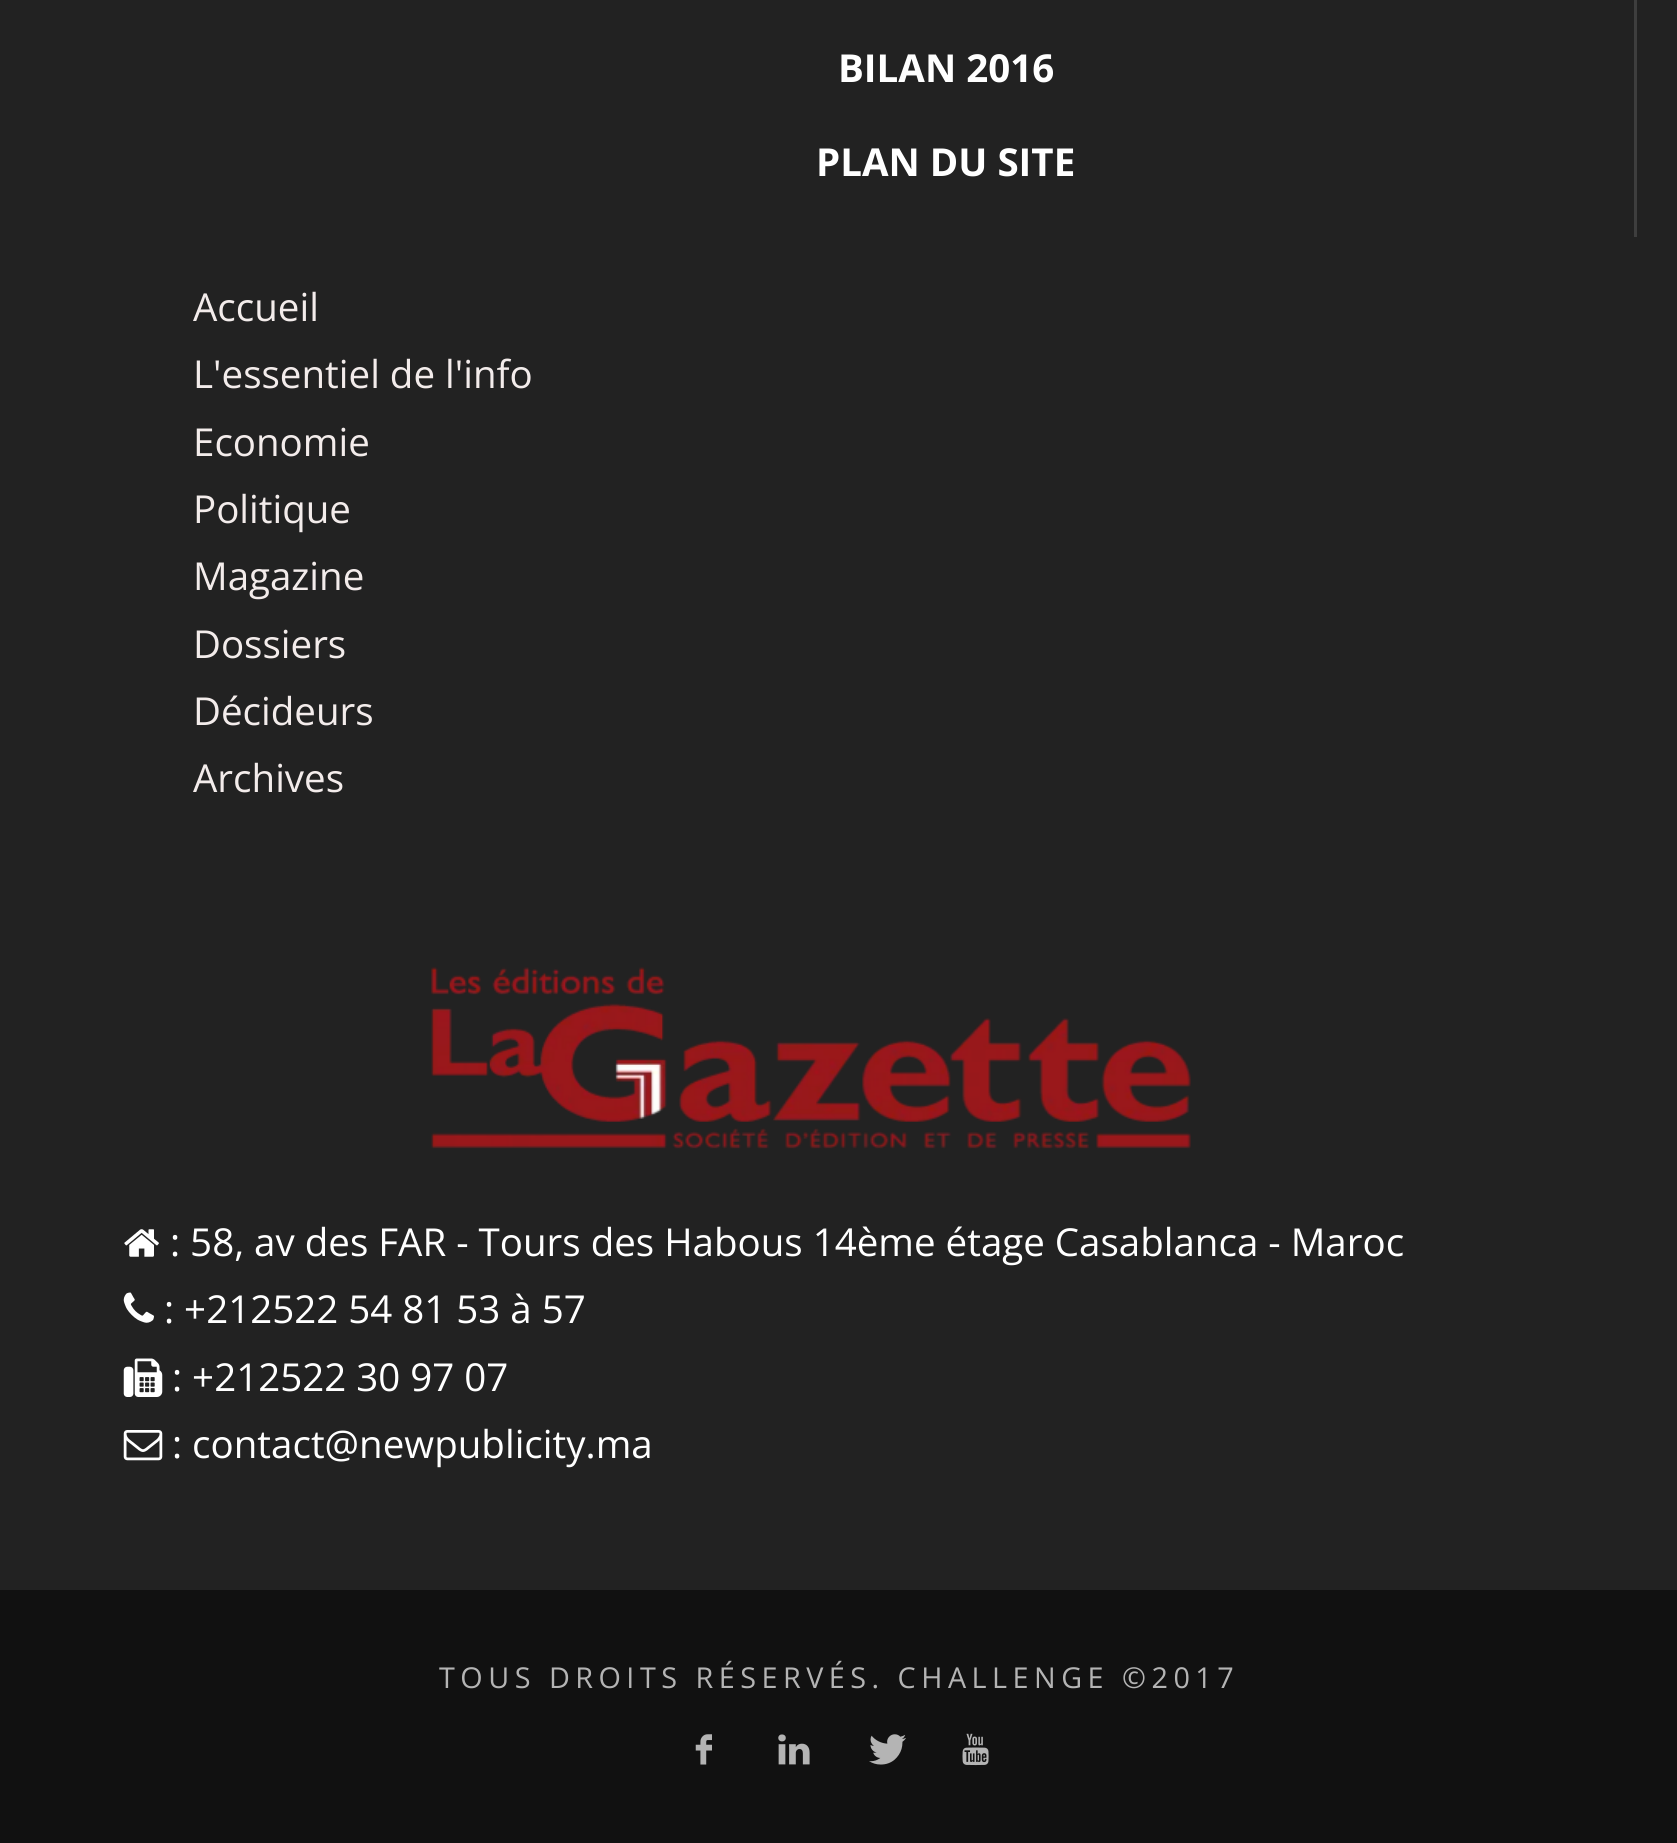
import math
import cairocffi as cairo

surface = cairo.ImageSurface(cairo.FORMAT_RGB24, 1677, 1843)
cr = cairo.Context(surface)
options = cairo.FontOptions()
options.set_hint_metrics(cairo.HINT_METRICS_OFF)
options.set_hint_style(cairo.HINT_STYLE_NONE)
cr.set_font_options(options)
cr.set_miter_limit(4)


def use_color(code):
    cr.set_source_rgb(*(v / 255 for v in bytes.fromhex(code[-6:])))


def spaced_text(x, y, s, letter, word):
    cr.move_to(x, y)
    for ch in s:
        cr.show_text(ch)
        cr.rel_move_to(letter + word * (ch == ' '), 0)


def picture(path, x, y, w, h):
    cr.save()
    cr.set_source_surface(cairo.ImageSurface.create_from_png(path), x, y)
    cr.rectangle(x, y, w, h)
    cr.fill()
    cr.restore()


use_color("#222222")
cr.paint()
use_color("#3e3e3e")
cr.rectangle(1634, 0, 3, 237)
cr.fill()
cr.select_font_face("Open Sans", cairo.FONT_SLANT_NORMAL, cairo.FONT_WEIGHT_BOLD)
cr.set_font_size(38.5)
use_color("#ffffff")
cr.move_to(838, 82)
cr.show_text("BILAN 2016")
cr.move_to(816, 176)
cr.show_text("PLAN DU SITE")
cr.select_font_face("Open Sans")
use_color("#f3eceb")
cr.move_to(193, 321)
cr.show_text("Accueil")
cr.move_to(193, 388)
cr.show_text("L'essentiel de l'info")
cr.move_to(193, 456)
cr.show_text("Economie")
cr.move_to(193, 523)
cr.show_text("Politique")
cr.move_to(193, 590)
cr.show_text("Magazine")
cr.move_to(193, 658)
cr.show_text("Dossiers")
cr.move_to(193, 725)
cr.show_text("Décideurs")
cr.move_to(193, 792)
cr.show_text("Archives")
picture("img1.png", 431, 967, 760, 182)
picture("img2.png", 124, 1229, 35, 28)
use_color("#ffffff")
cr.move_to(170, 1256)
cr.show_text(": 58, av des FAR - Tours des Habous 14ème étage Casablanca - Maroc")
picture("img3.png", 123, 1292, 31, 31)
cr.move_to(164, 1323)
cr.show_text(": +212522 54 81 53 à 57")
picture("img4.png", 123, 1358, 40, 39)
cr.move_to(172, 1391)
cr.show_text(": +212522 30 97 07")
picture("img5.png", 123, 1430, 40, 31)
cr.move_to(172, 1458)
cr.show_text(": contact@newpublicity.ma")
use_color("#111111")
cr.rectangle(0, 1590, 1677, 253)
cr.fill()
cr.set_font_size(28.75)
use_color("#b4b4b4")
spaced_text(439, 1688, "TOUS DROITS RÉSERVÉS. CHALLENGE ©2017", 5.5, 0)
picture("img6.png", 695, 1734, 17, 31)
picture("img7.png", 778, 1734, 32, 31)
picture("img8.png", 869, 1734, 37, 31)
picture("img9.png", 962, 1733, 27, 33)
surface.write_to_png("result.png")
